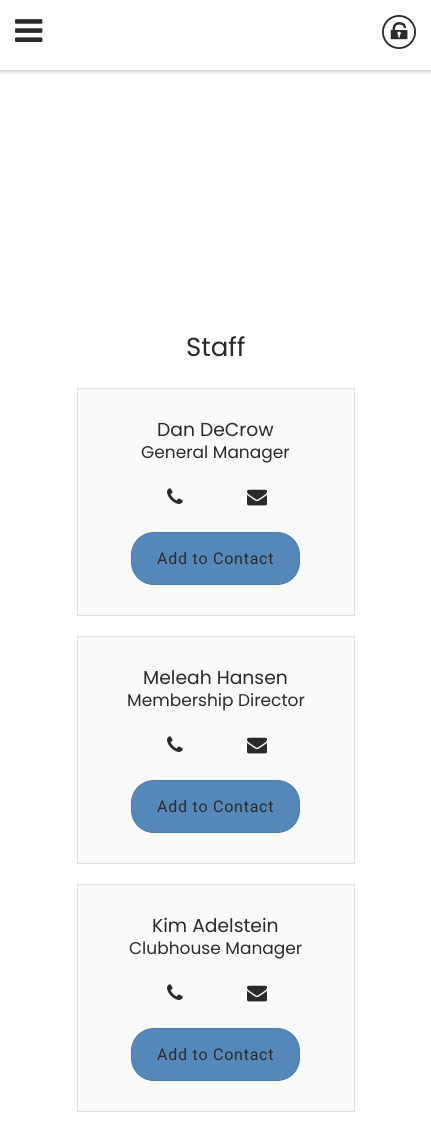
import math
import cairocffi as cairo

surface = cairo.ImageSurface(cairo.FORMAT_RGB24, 431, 1129)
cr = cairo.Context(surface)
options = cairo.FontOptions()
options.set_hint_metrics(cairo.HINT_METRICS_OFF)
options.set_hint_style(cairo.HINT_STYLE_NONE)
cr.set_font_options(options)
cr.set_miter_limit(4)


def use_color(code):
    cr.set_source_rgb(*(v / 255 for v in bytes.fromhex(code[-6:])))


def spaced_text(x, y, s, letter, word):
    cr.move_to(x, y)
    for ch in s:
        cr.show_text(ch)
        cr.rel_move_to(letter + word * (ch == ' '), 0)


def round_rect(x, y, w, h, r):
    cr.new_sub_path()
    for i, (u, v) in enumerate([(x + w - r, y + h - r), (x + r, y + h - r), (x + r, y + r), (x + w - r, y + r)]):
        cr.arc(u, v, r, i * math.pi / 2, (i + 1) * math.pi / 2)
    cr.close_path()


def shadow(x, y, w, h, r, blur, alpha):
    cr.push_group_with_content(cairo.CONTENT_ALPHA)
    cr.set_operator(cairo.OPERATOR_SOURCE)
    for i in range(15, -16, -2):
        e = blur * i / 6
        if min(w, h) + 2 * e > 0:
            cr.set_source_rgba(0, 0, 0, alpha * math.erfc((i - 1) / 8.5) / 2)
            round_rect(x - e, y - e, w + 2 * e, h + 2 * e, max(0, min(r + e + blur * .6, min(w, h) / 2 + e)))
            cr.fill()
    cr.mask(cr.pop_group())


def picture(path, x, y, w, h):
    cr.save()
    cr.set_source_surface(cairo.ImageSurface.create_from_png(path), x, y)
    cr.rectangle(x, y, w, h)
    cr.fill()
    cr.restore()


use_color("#ffffff")
cr.paint()
cr.save()
cr.rectangle(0, 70, 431, 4)
cr.clip()
use_color("#000000")
shadow(0, 0, 431, 70, 0, 2.5, 0.4)
cr.restore()
picture("img1.png", 15, 19, 28, 23)
picture("img2.png", 382, 15, 34, 34)
cr.select_font_face("Poppins")
cr.set_font_size(26)
use_color("#2a2a2a")
cr.move_to(186, 356)
cr.show_text("Staff")
use_color("#fafafa")
cr.rectangle(77.5, 388.5, 277, 227)
cr.fill_preserve()
use_color("#e0e0e0")
cr.set_line_width(1)
cr.stroke()
cr.set_font_size(18.75)
use_color("#2a2a2a")
cr.move_to(157, 436)
cr.show_text("Dan DeCrow")
cr.set_font_size(17)
cr.move_to(141, 458)
cr.show_text("General Manager")
picture("img3.png", 167, 488, 16, 16)
picture("img4.png", 247, 489, 20, 17)
use_color("#5588ba")
round_rect(131.5, 532.5, 168, 52, 22.5)
cr.fill_preserve()
use_color("#477baf")
cr.stroke()
cr.select_font_face("Roboto")
cr.set_font_size(16)
use_color("#2a2a2a")
spaced_text(157, 564, "Add to Contact", 0.75, 0)
use_color("#fafafa")
cr.rectangle(77.5, 636.5, 277, 227)
cr.fill_preserve()
use_color("#e0e0e0")
cr.stroke()
cr.select_font_face("Poppins")
cr.set_font_size(18.75)
use_color("#2a2a2a")
cr.move_to(143, 684)
cr.show_text("Meleah Hansen")
cr.set_font_size(17)
cr.move_to(127, 706)
cr.show_text("Membership Director")
picture("img3.png", 167, 736, 16, 16)
picture("img4.png", 247, 737, 20, 17)
use_color("#5588ba")
round_rect(131.5, 780.5, 168, 52, 22.5)
cr.fill_preserve()
use_color("#477baf")
cr.stroke()
cr.select_font_face("Roboto")
cr.set_font_size(16)
use_color("#2a2a2a")
spaced_text(157, 812, "Add to Contact", 0.75, 0)
use_color("#fafafa")
cr.rectangle(77.5, 884.5, 277, 227)
cr.fill_preserve()
use_color("#e0e0e0")
cr.stroke()
cr.select_font_face("Poppins")
cr.set_font_size(18.75)
use_color("#2a2a2a")
cr.move_to(152, 932)
cr.show_text("Kim Adelstein")
cr.set_font_size(17)
cr.move_to(129, 954)
cr.show_text("Clubhouse Manager")
picture("img3.png", 167, 984, 16, 16)
picture("img4.png", 247, 985, 20, 17)
use_color("#5588ba")
round_rect(131.5, 1028.5, 168, 52, 22.5)
cr.fill_preserve()
use_color("#477baf")
cr.stroke()
cr.select_font_face("Roboto")
cr.set_font_size(16)
use_color("#2a2a2a")
spaced_text(157, 1060, "Add to Contact", 0.75, 0)
surface.write_to_png("result.png")
